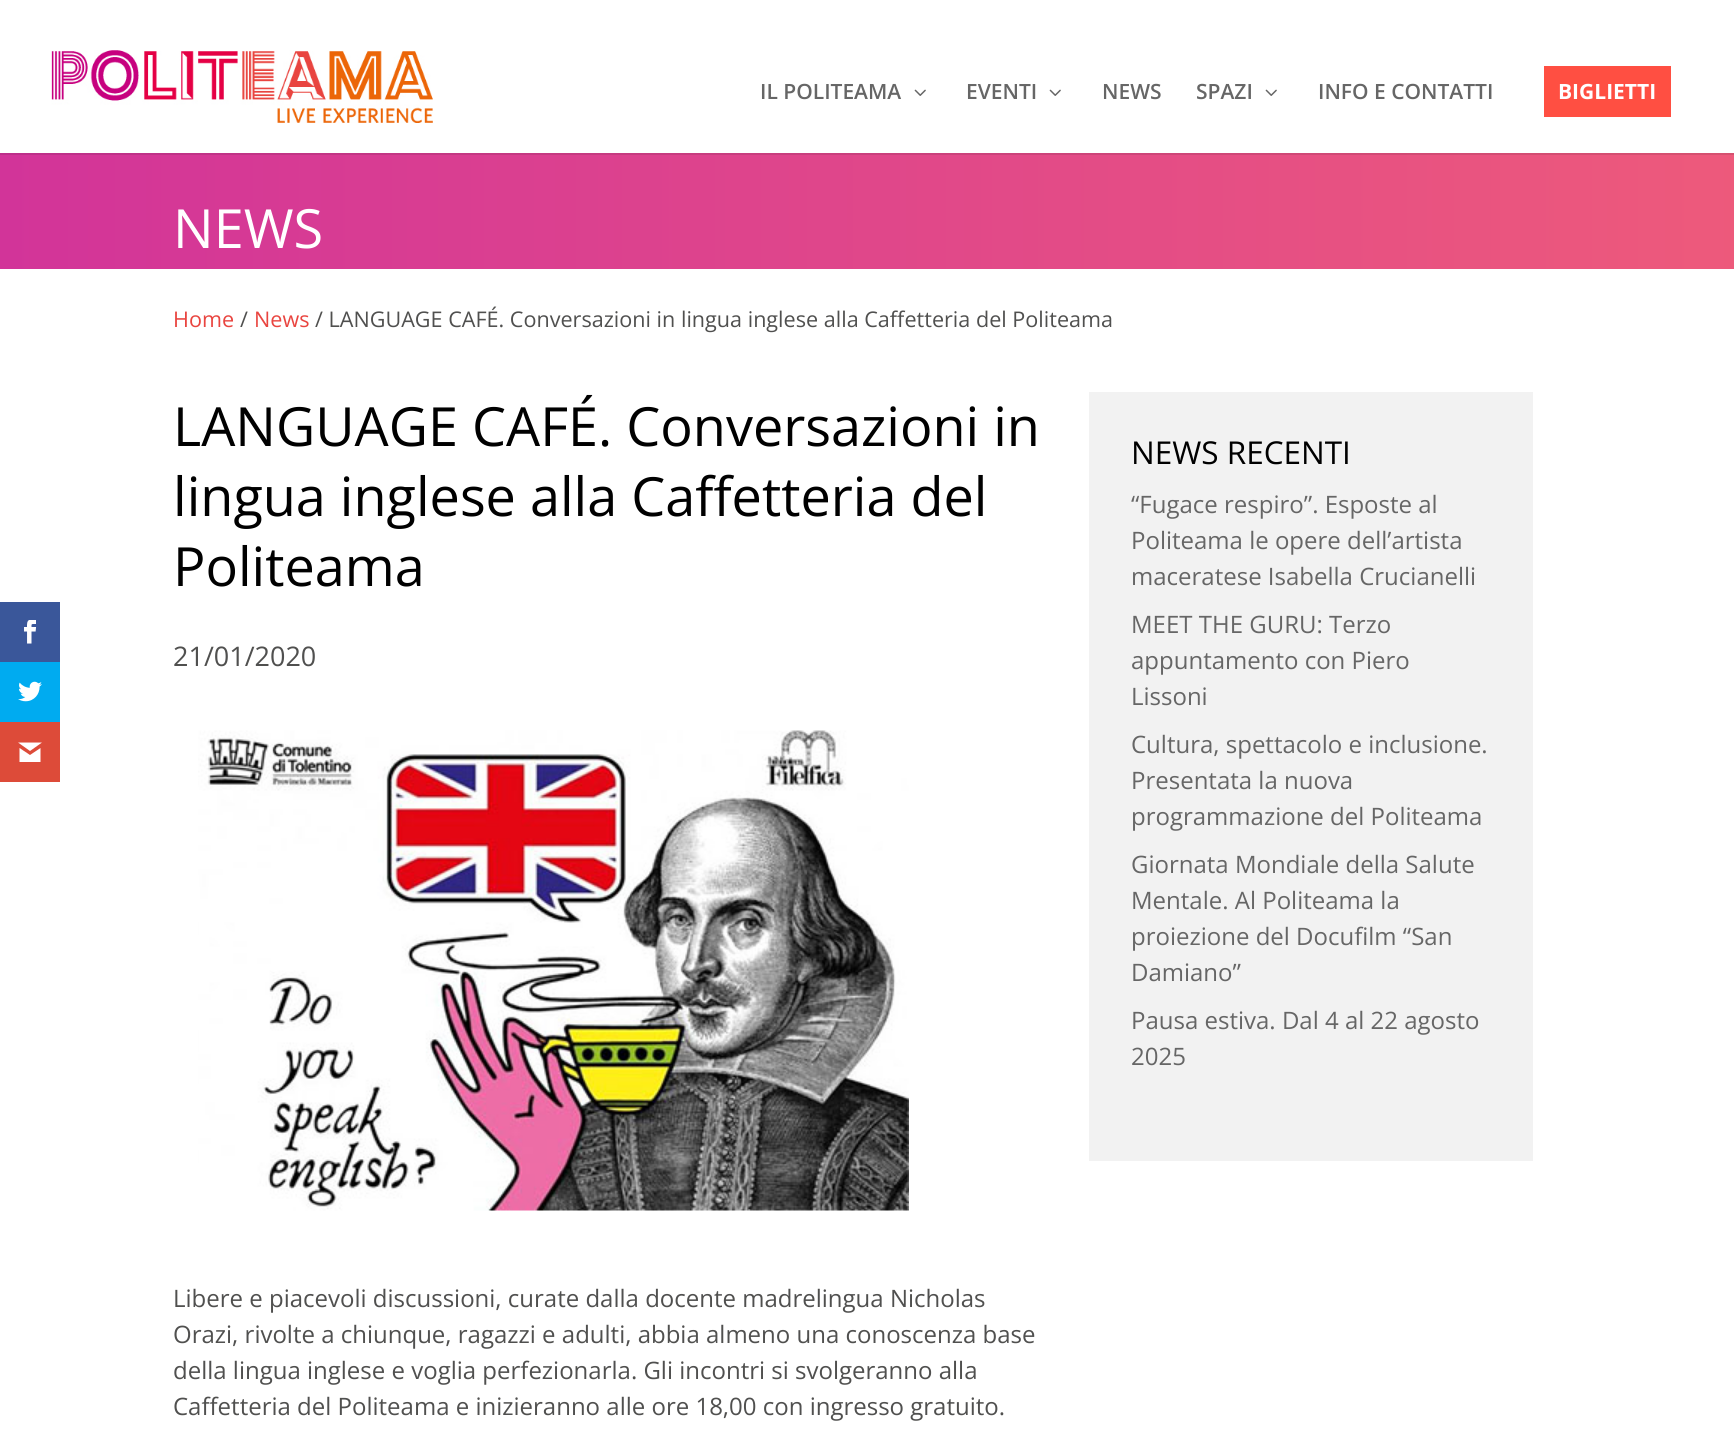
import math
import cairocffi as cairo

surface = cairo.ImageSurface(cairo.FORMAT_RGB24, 1734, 1430)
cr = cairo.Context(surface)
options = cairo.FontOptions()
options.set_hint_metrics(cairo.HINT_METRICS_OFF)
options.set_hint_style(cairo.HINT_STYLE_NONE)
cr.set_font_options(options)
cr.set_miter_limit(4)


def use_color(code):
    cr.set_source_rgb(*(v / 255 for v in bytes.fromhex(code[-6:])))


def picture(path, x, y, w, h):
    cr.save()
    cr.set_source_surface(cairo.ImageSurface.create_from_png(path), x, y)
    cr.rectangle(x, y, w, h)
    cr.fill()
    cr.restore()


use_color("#ffffff")
cr.paint()
use_color("#3a579a")
cr.rectangle(0, 602, 60, 60)
cr.fill()
picture("img1.png", 24, 620, 13, 24)
use_color("#00abf0")
cr.rectangle(0, 662, 60, 60)
cr.fill()
picture("img2.png", 18, 681, 24, 21)
use_color("#dd4b39")
cr.rectangle(0, 722, 60, 60)
cr.fill()
use_color("#ffffff")
cr.new_path()
cr.move_to(42, 742.5)
cr.line_to(18, 742.5)
cr.line_to(30, 751)
cr.close_path()
cr.move_to(30, 755)
cr.line_to(19.5, 748)
cr.line_to(19.5, 762)
cr.line_to(40.5, 762)
cr.line_to(40.5, 748)
cr.close_path()
cr.fill()
picture("img3.png", 51, 50, 382, 73)
cr.select_font_face("Open Sans SemiBold")
cr.set_font_size(21)
use_color("#666666")
cr.move_to(760, 99)
cr.show_text("IL POLITEAMA")
picture("img4.png", 914, 89, 12, 7)
cr.move_to(966, 99)
cr.show_text("EVENTI")
picture("img4.png", 1049, 89, 12, 7)
cr.move_to(1102, 99)
cr.show_text("NEWS")
cr.move_to(1196, 99)
cr.show_text("SPAZI")
picture("img4.png", 1265, 89, 12, 7)
cr.move_to(1318, 99)
cr.show_text("INFO E CONTATTI")
use_color("#ff4f42")
cr.rectangle(1544, 66, 127, 51)
cr.fill()
cr.select_font_face("Open Sans", cairo.FONT_SLANT_NORMAL, cairo.FONT_WEIGHT_BOLD)
use_color("#ffffff")
cr.move_to(1558, 99)
cr.show_text("BIGLIETTI")
gradient = cairo.LinearGradient(0, 848, 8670, 847)
gradient.add_color_stop_rgba(0, 0.824, 0.204, 0.6, 1)
gradient.add_color_stop_rgba(0.33, 1, 0.447, 0.408, 1)
gradient.add_color_stop_rgba(0.67, 0.824, 0.204, 0.6, 1)
gradient.add_color_stop_rgba(1, 1, 0.447, 0.408, 1)
cr.set_source(gradient)
cr.rectangle(0, 155, 1734, 114)
cr.fill()
gradient = cairo.LinearGradient(0, 848, 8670, 847)
gradient.add_color_stop_rgba(0, 0.741, 0.184, 0.541, 1)
gradient.add_color_stop_rgba(0.33, 0.902, 0.404, 0.369, 1)
gradient.add_color_stop_rgba(0.67, 0.741, 0.184, 0.541, 1)
gradient.add_color_stop_rgba(1, 0.902, 0.404, 0.369, 1)
cr.set_source(gradient)
cr.rectangle(0, 153, 1734, 2)
cr.fill()
cr.select_font_face("Open Sans")
cr.set_font_size(54)
use_color("#ffffff")
cr.move_to(173, 248)
cr.show_text("NEWS")
cr.set_font_size(21.6)
use_color("#e94540")
cr.move_to(173, 327)
cr.show_text("Home")
use_color("#50504f")
cr.move_to(240, 327)
cr.show_text("/")
use_color("#e94540")
cr.move_to(254, 327)
cr.show_text("News")
use_color("#50504f")
cr.move_to(315, 327)
cr.show_text("/ LANGUAGE CAFÉ. Conversazioni in lingua inglese alla Caffetteria del Politeama")
cr.set_font_size(54)
use_color("#000000")
cr.move_to(173, 446)
cr.show_text("LANGUAGE CAFÉ. Conversazioni in")
cr.move_to(173, 516)
cr.show_text("lingua inglese alla Caffetteria del")
cr.move_to(173, 586)
cr.show_text("Politeama")
cr.set_font_size(27)
use_color("#50504f")
cr.move_to(173, 666)
cr.show_text("21/01/2020")
picture("img5.png", 198, 730, 711, 481)
cr.set_font_size(24)
cr.move_to(173, 1307)
cr.show_text("Libere e piacevoli discussioni, curate dalla docente madrelingua Nicholas")
cr.move_to(173, 1343)
cr.show_text("Orazi, rivolte a chiunque, ragazzi e adulti, abbia almeno una conoscenza base")
cr.move_to(173, 1379)
cr.show_text("della lingua inglese e voglia perfezionarla. Gli incontri si svolgeranno alla")
cr.move_to(173, 1415)
cr.show_text("Caffetteria del Politeama e inizieranno alle ore 18,00 con ingresso gratuito.")
use_color("#f2f2f2")
cr.rectangle(1089, 392, 444, 769)
cr.fill()
cr.set_font_size(31.5)
use_color("#000000")
cr.move_to(1131, 464)
cr.show_text("NEWS RECENTI")
cr.set_font_size(24)
use_color("#666666")
cr.move_to(1131, 513)
cr.show_text("“Fugace respiro”. Esposte al")
cr.move_to(1131, 549)
cr.show_text("Politeama le opere dell’artista")
cr.move_to(1131, 585)
cr.show_text("maceratese Isabella Crucianelli")
cr.move_to(1131, 633)
cr.show_text("MEET THE GURU: Terzo")
cr.move_to(1131, 669)
cr.show_text("appuntamento con Piero")
cr.move_to(1131, 705)
cr.show_text("Lissoni")
cr.move_to(1131, 753)
cr.show_text("Cultura, spettacolo e inclusione.")
cr.move_to(1131, 789)
cr.show_text("Presentata la nuova")
cr.move_to(1131, 825)
cr.show_text("programmazione del Politeama")
cr.move_to(1131, 873)
cr.show_text("Giornata Mondiale della Salute")
cr.move_to(1131, 909)
cr.show_text("Mentale. Al Politeama la")
cr.move_to(1131, 945)
cr.show_text("proiezione del Docufilm “San")
cr.move_to(1131, 981)
cr.show_text("Damiano”")
cr.move_to(1131, 1029)
cr.show_text("Pausa estiva. Dal 4 al 22 agosto")
cr.move_to(1131, 1065)
cr.show_text("2025")
surface.write_to_png("result.png")
